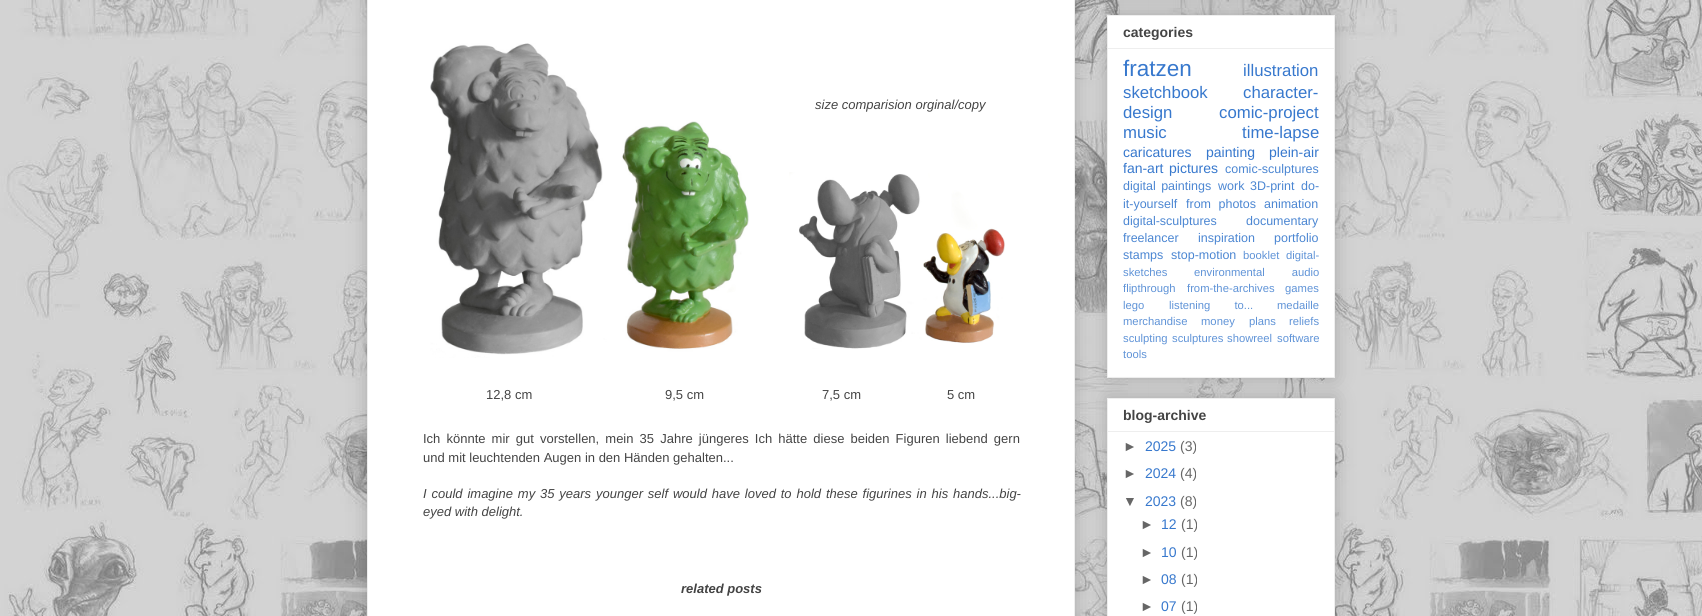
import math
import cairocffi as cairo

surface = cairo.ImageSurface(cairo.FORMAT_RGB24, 1702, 616)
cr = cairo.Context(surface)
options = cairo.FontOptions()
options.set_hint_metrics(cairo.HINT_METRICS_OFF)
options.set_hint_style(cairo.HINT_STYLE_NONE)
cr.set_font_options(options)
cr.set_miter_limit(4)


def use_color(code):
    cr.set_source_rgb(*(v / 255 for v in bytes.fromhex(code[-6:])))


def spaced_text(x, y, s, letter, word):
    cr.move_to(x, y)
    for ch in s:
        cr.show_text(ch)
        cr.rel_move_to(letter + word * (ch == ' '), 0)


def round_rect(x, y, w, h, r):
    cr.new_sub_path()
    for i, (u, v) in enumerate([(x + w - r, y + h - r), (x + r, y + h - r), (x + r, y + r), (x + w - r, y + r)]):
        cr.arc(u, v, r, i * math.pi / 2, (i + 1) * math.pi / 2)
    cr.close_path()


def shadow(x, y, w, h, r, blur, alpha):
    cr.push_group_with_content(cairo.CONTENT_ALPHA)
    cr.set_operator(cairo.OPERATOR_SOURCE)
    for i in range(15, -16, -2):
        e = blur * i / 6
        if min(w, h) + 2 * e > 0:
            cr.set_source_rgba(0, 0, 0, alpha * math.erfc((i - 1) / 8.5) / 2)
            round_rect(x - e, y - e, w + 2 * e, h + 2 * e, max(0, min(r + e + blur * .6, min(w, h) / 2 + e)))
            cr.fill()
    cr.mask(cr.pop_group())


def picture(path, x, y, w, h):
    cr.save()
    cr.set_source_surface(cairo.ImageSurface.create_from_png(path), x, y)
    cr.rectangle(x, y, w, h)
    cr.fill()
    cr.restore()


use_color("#ffffff")
cr.paint()
picture("img1.png", 0, 0, 1702, 616)
use_color("#000000")
shadow(367, -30, 708, 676, 0, 10, 0.2)
use_color("#ffffff")
cr.rectangle(367.5, -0.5, 707, 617)
cr.fill_preserve()
use_color("#eeeeee")
cr.set_line_width(1)
cr.stroke()
picture("img2.png", 430, 43, 319, 315)
cr.select_font_face("Liberation Sans", cairo.FONT_SLANT_ITALIC)
cr.set_font_size(13)
use_color("#444444")
cr.move_to(815, 109)
cr.show_text("size comparision orginal/copy")
picture("img3.png", 789, 172, 216, 177)
cr.select_font_face("Liberation Sans")
cr.move_to(486, 399)
cr.show_text("12,8 cm")
cr.move_to(665, 399)
cr.show_text("9,5 cm")
cr.move_to(822, 399)
cr.show_text("7,5 cm")
cr.move_to(947, 399)
cr.show_text("5 cm")
spaced_text(423, 443, "Ich könnte mir gut vorstellen, mein 35 Jahre jüngeres Ich hätte diese beiden Figuren liebend gern", 0, 2.5)
cr.move_to(423, 462)
cr.show_text("und mit leuchtenden Augen in den Händen gehalten...")
cr.select_font_face("Liberation Sans", cairo.FONT_SLANT_ITALIC)
spaced_text(423, 498, "I could imagine my 35 years younger self would have loved to hold these figurines in his hands...big-", 0, 1.25)
cr.move_to(423, 516)
cr.show_text("eyed with delight.")
cr.select_font_face("Liberation Sans", cairo.FONT_SLANT_ITALIC, cairo.FONT_WEIGHT_BOLD)
cr.move_to(681, 593)
cr.show_text("related posts")
use_color("#000000")
shadow(1107, -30, 228, 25, 0, 10, 0.2)
shadow(1107, 15, 228, 363, 0, 10, 0.2)
use_color("#ffffff")
cr.rectangle(1107.5, 15.5, 227, 362)
cr.fill_preserve()
use_color("#eeeeee")
cr.stroke()
cr.select_font_face("Liberation Sans", cairo.FONT_SLANT_NORMAL, cairo.FONT_WEIGHT_BOLD)
cr.set_font_size(14)
use_color("#444444")
cr.move_to(1123, 37)
cr.show_text("categories")
use_color("#eeeeee")
cr.rectangle(1108, 48, 226, 1)
cr.fill()
cr.select_font_face("Liberation Sans")
cr.set_font_size(22.5)
use_color("#3778cd")
cr.move_to(1123, 76)
cr.show_text("fratzen")
cr.set_font_size(16.75)
cr.move_to(1243, 76)
cr.show_text("illustration")
cr.move_to(1123, 98)
cr.show_text("sketchbook")
cr.move_to(1243, 98)
cr.show_text("character-")
cr.move_to(1123, 118)
cr.show_text("design")
cr.move_to(1219, 118)
cr.show_text("comic-project")
cr.move_to(1123, 138)
cr.show_text("music")
cr.move_to(1242, 138)
cr.show_text("time-lapse")
cr.set_font_size(14)
cr.move_to(1123, 157)
cr.show_text("caricatures")
cr.move_to(1206, 157)
cr.show_text("painting")
cr.move_to(1269, 157)
cr.show_text("plein-air")
cr.move_to(1123, 173)
cr.show_text("fan-art")
cr.move_to(1169, 173)
cr.show_text("pictures")
cr.set_font_size(12.5)
use_color("#4b86d2")
cr.move_to(1225, 173)
cr.show_text("comic-sculptures")
spaced_text(1123, 190, "digital paintings", 0, 2)
cr.move_to(1218, 190)
cr.show_text("work")
cr.move_to(1250, 190)
cr.show_text("3D-print")
cr.move_to(1301, 190)
cr.show_text("do-")
cr.move_to(1123, 208)
cr.show_text("it-yourself")
spaced_text(1186, 208, "from photos", 0, 4)
cr.move_to(1264, 208)
cr.show_text("animation")
cr.move_to(1123, 225)
cr.show_text("digital-sculptures")
cr.move_to(1246, 225)
cr.show_text("documentary")
cr.move_to(1123, 242)
cr.show_text("freelancer")
cr.move_to(1198, 242)
cr.show_text("inspiration")
cr.move_to(1274, 242)
cr.show_text("portfolio")
cr.move_to(1123, 259)
cr.show_text("stamps")
cr.move_to(1171, 259)
cr.show_text("stop-motion")
cr.set_font_size(11.25)
use_color("#5f93d7")
cr.move_to(1243, 259)
cr.show_text("booklet")
cr.move_to(1286, 259)
cr.show_text("digital-")
cr.move_to(1123, 276)
cr.show_text("sketches")
spaced_text(1194, 276, "environmental audio", 0, 24)
cr.move_to(1123, 292)
cr.show_text("flipthrough")
cr.move_to(1187, 292)
cr.show_text("from-the-archives")
cr.move_to(1285, 292)
cr.show_text("games")
cr.move_to(1123, 309)
cr.show_text("lego")
spaced_text(1169, 309, "listening to...", 0, 21)
cr.move_to(1277, 309)
cr.show_text("medaille")
cr.move_to(1123, 325)
cr.show_text("merchandise")
cr.move_to(1201, 325)
cr.show_text("money")
cr.move_to(1249, 325)
cr.show_text("plans")
cr.move_to(1289, 325)
cr.show_text("reliefs")
cr.move_to(1123, 342)
cr.show_text("sculpting")
cr.move_to(1172, 342)
cr.show_text("sculptures")
cr.move_to(1227, 342)
cr.show_text("showreel")
cr.move_to(1277, 342)
cr.show_text("software")
cr.move_to(1123, 358)
cr.show_text("tools")
use_color("#000000")
shadow(1107, 398, 228, 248, 0, 10, 0.2)
use_color("#ffffff")
cr.rectangle(1107.5, 398.5, 227, 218)
cr.fill_preserve()
use_color("#eeeeee")
cr.stroke()
cr.select_font_face("Liberation Sans", cairo.FONT_SLANT_NORMAL, cairo.FONT_WEIGHT_BOLD)
cr.set_font_size(14)
use_color("#444444")
cr.move_to(1123, 420)
cr.show_text("blog-archive")
use_color("#eeeeee")
cr.rectangle(1108, 431, 226, 1)
cr.fill()
cr.select_font_face("Liberation Sans")
use_color("#666666")
cr.move_to(1123, 451)
cr.show_text("►")
use_color("#3778cd")
cr.move_to(1145, 451)
cr.show_text("2025")
use_color("#666666")
cr.move_to(1180, 451)
cr.show_text("(3)")
cr.move_to(1123, 478)
cr.show_text("►")
use_color("#3778cd")
cr.move_to(1145, 478)
cr.show_text("2024")
use_color("#666666")
cr.move_to(1180, 478)
cr.show_text("(4)")
cr.move_to(1123, 506)
cr.show_text("▼")
use_color("#3778cd")
cr.move_to(1145, 506)
cr.show_text("2023")
use_color("#666666")
cr.move_to(1180, 506)
cr.show_text("(8)")
cr.move_to(1140, 529)
cr.show_text("►")
use_color("#3778cd")
cr.move_to(1161, 529)
cr.show_text("12")
use_color("#666666")
cr.move_to(1181, 529)
cr.show_text("(1)")
cr.move_to(1140, 557)
cr.show_text("►")
use_color("#3778cd")
cr.move_to(1161, 557)
cr.show_text("10")
use_color("#666666")
cr.move_to(1181, 557)
cr.show_text("(1)")
cr.move_to(1140, 584)
cr.show_text("►")
use_color("#3778cd")
cr.move_to(1161, 584)
cr.show_text("08")
use_color("#666666")
cr.move_to(1181, 584)
cr.show_text("(1)")
cr.move_to(1140, 611)
cr.show_text("►")
use_color("#3778cd")
cr.move_to(1161, 611)
cr.show_text("07")
use_color("#666666")
cr.move_to(1181, 611)
cr.show_text("(1)")
surface.write_to_png("result.png")
